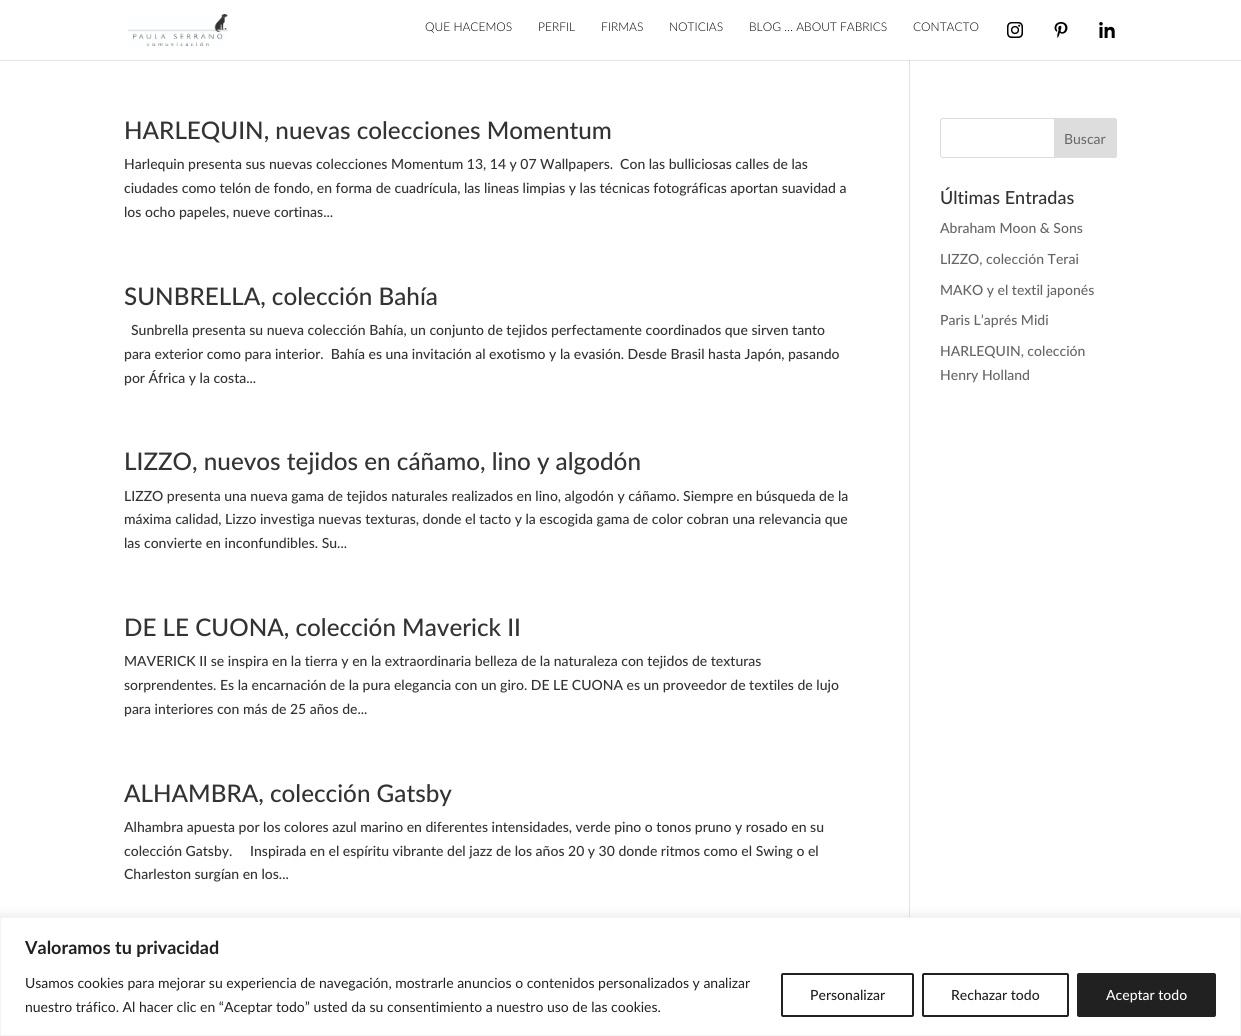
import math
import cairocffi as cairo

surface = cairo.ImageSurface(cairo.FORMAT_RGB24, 1241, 1036)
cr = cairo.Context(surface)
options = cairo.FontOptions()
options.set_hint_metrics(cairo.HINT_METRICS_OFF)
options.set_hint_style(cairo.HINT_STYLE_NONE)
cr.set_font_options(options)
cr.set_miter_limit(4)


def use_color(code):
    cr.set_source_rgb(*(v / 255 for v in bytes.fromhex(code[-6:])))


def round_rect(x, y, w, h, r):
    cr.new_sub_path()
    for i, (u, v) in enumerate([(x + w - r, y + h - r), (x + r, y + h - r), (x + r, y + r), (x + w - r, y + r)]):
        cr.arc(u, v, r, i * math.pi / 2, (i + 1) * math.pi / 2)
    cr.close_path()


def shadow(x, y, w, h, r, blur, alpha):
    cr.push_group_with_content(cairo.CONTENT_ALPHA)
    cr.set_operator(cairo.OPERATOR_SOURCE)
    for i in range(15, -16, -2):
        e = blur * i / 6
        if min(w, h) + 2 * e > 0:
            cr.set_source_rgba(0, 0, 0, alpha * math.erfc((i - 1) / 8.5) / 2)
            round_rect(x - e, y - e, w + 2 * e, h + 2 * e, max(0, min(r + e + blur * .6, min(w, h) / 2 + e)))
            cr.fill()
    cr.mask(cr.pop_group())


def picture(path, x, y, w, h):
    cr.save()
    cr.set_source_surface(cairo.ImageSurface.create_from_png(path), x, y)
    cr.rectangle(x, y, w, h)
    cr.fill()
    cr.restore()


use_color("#ffffff")
cr.paint()
use_color("#e6e6e6")
cr.rectangle(0, 60, 1241, 1)
cr.fill()
picture("img1.png", 128, 14, 100, 32)
cr.select_font_face("Lato Light")
cr.set_font_size(12)
use_color("#000000")
cr.move_to(425, 31)
cr.show_text("QUE HACEMOS")
cr.move_to(538, 31)
cr.show_text("PERFIL")
cr.move_to(601, 31)
cr.show_text("FIRMAS")
cr.move_to(669, 31)
cr.show_text("NOTICIAS")
cr.move_to(749, 31)
cr.show_text("BLOG … ABOUT FABRICS")
cr.move_to(913, 31)
cr.show_text("CONTACTO")
picture("img2.png", 1007, 22, 16, 16)
picture("img3.png", 1054, 22, 14, 16)
picture("img4.png", 1099, 22, 16, 16)
use_color("#e2e2e2")
cr.rectangle(909, 60, 1, 857)
cr.fill()
use_color("#cbcbcb")
cr.rectangle(909, 60, 1, 1)
cr.fill()
cr.select_font_face("Lato Medium")
cr.set_font_size(24.25)
use_color("#333333")
cr.move_to(124, 139)
cr.show_text("HARLEQUIN, nuevas colecciones Momentum")
cr.set_font_size(14)
cr.move_to(124, 169)
cr.show_text("Harlequin presenta sus nuevas colecciones Momentum 13, 14 y 07 Wallpapers.  Con las bulliciosas calles de las")
cr.move_to(124, 193)
cr.show_text("ciudades como telón de fondo, en forma de cuadrícula, las lineas limpias y las técnicas fotográficas aportan suavidad a")
cr.move_to(124, 217)
cr.show_text("los ocho papeles, nueve cortinas...")
cr.set_font_size(24.25)
cr.move_to(124, 305)
cr.show_text("SUNBRELLA, colección Bahía")
cr.set_font_size(14)
cr.move_to(131, 335)
cr.show_text("Sunbrella presenta su nueva colección Bahía, un conjunto de tejidos perfectamente coordinados que sirven tanto")
cr.move_to(124, 359)
cr.show_text("para exterior como para interior.  Bahía es una invitación al exotismo y la evasión. Desde Brasil hasta Japón, pasando")
cr.move_to(124, 383)
cr.show_text("por África y la costa...")
cr.set_font_size(24.25)
cr.move_to(124, 470)
cr.show_text("LIZZO, nuevos tejidos en cáñamo, lino y algodón")
cr.set_font_size(14)
cr.move_to(124, 501)
cr.show_text("LIZZO presenta una nueva gama de tejidos naturales realizados en lino, algodón y cáñamo. Siempre en búsqueda de la")
cr.move_to(124, 524)
cr.show_text("máxima calidad, Lizzo investiga nuevas texturas, donde el tacto y la escogida gama de color cobran una relevancia que")
cr.move_to(124, 548)
cr.show_text("las convierte en inconfundibles. Su...")
cr.set_font_size(24.25)
cr.move_to(124, 636)
cr.show_text("DE LE CUONA, colección Maverick II")
cr.set_font_size(14)
cr.move_to(124, 666)
cr.show_text("MAVERICK II se inspira en la tierra y en la extraordinaria belleza de la naturaleza con tejidos de texturas")
cr.move_to(124, 690)
cr.show_text("sorprendentes. Es la encarnación de la pura elegancia con un giro. DE LE CUONA es un proveedor de textiles de lujo")
cr.move_to(124, 714)
cr.show_text("para interiores con más de 25 años de...")
cr.set_font_size(24.25)
cr.move_to(124, 802)
cr.show_text("ALHAMBRA, colección Gatsby")
cr.set_font_size(14)
cr.move_to(124, 832)
cr.show_text("Alhambra apuesta por los colores azul marino en diferentes intensidades, verde pino o tonos pruno y rosado en su")
cr.move_to(124, 856)
cr.show_text("colección Gatsby.     Inspirada en el espíritu vibrante del jazz de los años 20 y 30 donde ritmos como el Swing o el")
cr.move_to(124, 879)
cr.show_text("Charleston surgían en los...")
round_rect(940.5, 118.5, 176, 39, 2.5)
use_color("#dddddd")
cr.set_line_width(1)
cr.stroke()
cr.new_path()
cr.move_to(1054.5, 118.5)
cr.line_to(1114, 118.5)
cr.curve_to(1115.5, 118.5, 1116.5, 119.5, 1116.5, 121)
cr.line_to(1116.5, 155)
cr.curve_to(1116.5, 156.5, 1115.5, 157.5, 1114, 157.5)
cr.line_to(1054.5, 157.5)
cr.close_path()
cr.fill_preserve()
cr.stroke()
cr.select_font_face("Lato")
use_color("#666666")
cr.move_to(1064, 144)
cr.show_text("Buscar")
cr.select_font_face("Lato Medium")
cr.set_font_size(18)
use_color("#333333")
cr.move_to(940, 204)
cr.show_text("Últimas Entradas")
cr.set_font_size(14)
use_color("#666666")
cr.move_to(940, 233)
cr.show_text("Abraham Moon & Sons")
cr.move_to(940, 264)
cr.show_text("LIZZO, colección Terai")
cr.move_to(940, 295)
cr.show_text("MAKO y el textil japonés")
cr.move_to(940, 325)
cr.show_text("Paris L’aprés Midi")
cr.move_to(940, 356)
cr.show_text("HARLEQUIN, colección")
cr.move_to(940, 380)
cr.show_text("Henry Holland")
use_color("#acabab")
shadow(0, 916, 1241, 119, 0, 5, 0.3)
use_color("#ffffff")
cr.rectangle(0.5, 917.5, 1240, 118)
cr.fill_preserve()
use_color("#f4f4f4")
cr.stroke()
cr.select_font_face("Lato", cairo.FONT_SLANT_NORMAL, cairo.FONT_WEIGHT_BOLD)
cr.set_font_size(18)
use_color("#212121")
cr.move_to(25, 954)
cr.show_text("Valoramos tu privacidad")
cr.select_font_face("Lato")
cr.set_font_size(14)
cr.move_to(25, 988)
cr.show_text("Usamos cookies para mejorar su experiencia de navegación, mostrarle anuncios o contenidos personalizados y analizar")
cr.move_to(25, 1012)
cr.show_text("nuestro tráfico. Al hacer clic en “Aceptar todo” usted da su consentimiento a nuestro uso de las cookies.")
round_rect(782, 974, 131, 42, 1)
cr.set_line_width(2)
cr.stroke()
cr.select_font_face("Lato Medium")
cr.move_to(810, 1000)
cr.show_text("Personalizar")
round_rect(923, 974, 145, 42, 1)
cr.stroke()
cr.move_to(951, 1000)
cr.show_text("Rechazar todo")
round_rect(1078, 974, 137, 42, 1)
cr.fill_preserve()
cr.stroke()
use_color("#ffffff")
cr.move_to(1106, 1000)
cr.show_text("Aceptar todo")
surface.write_to_png("result.png")
